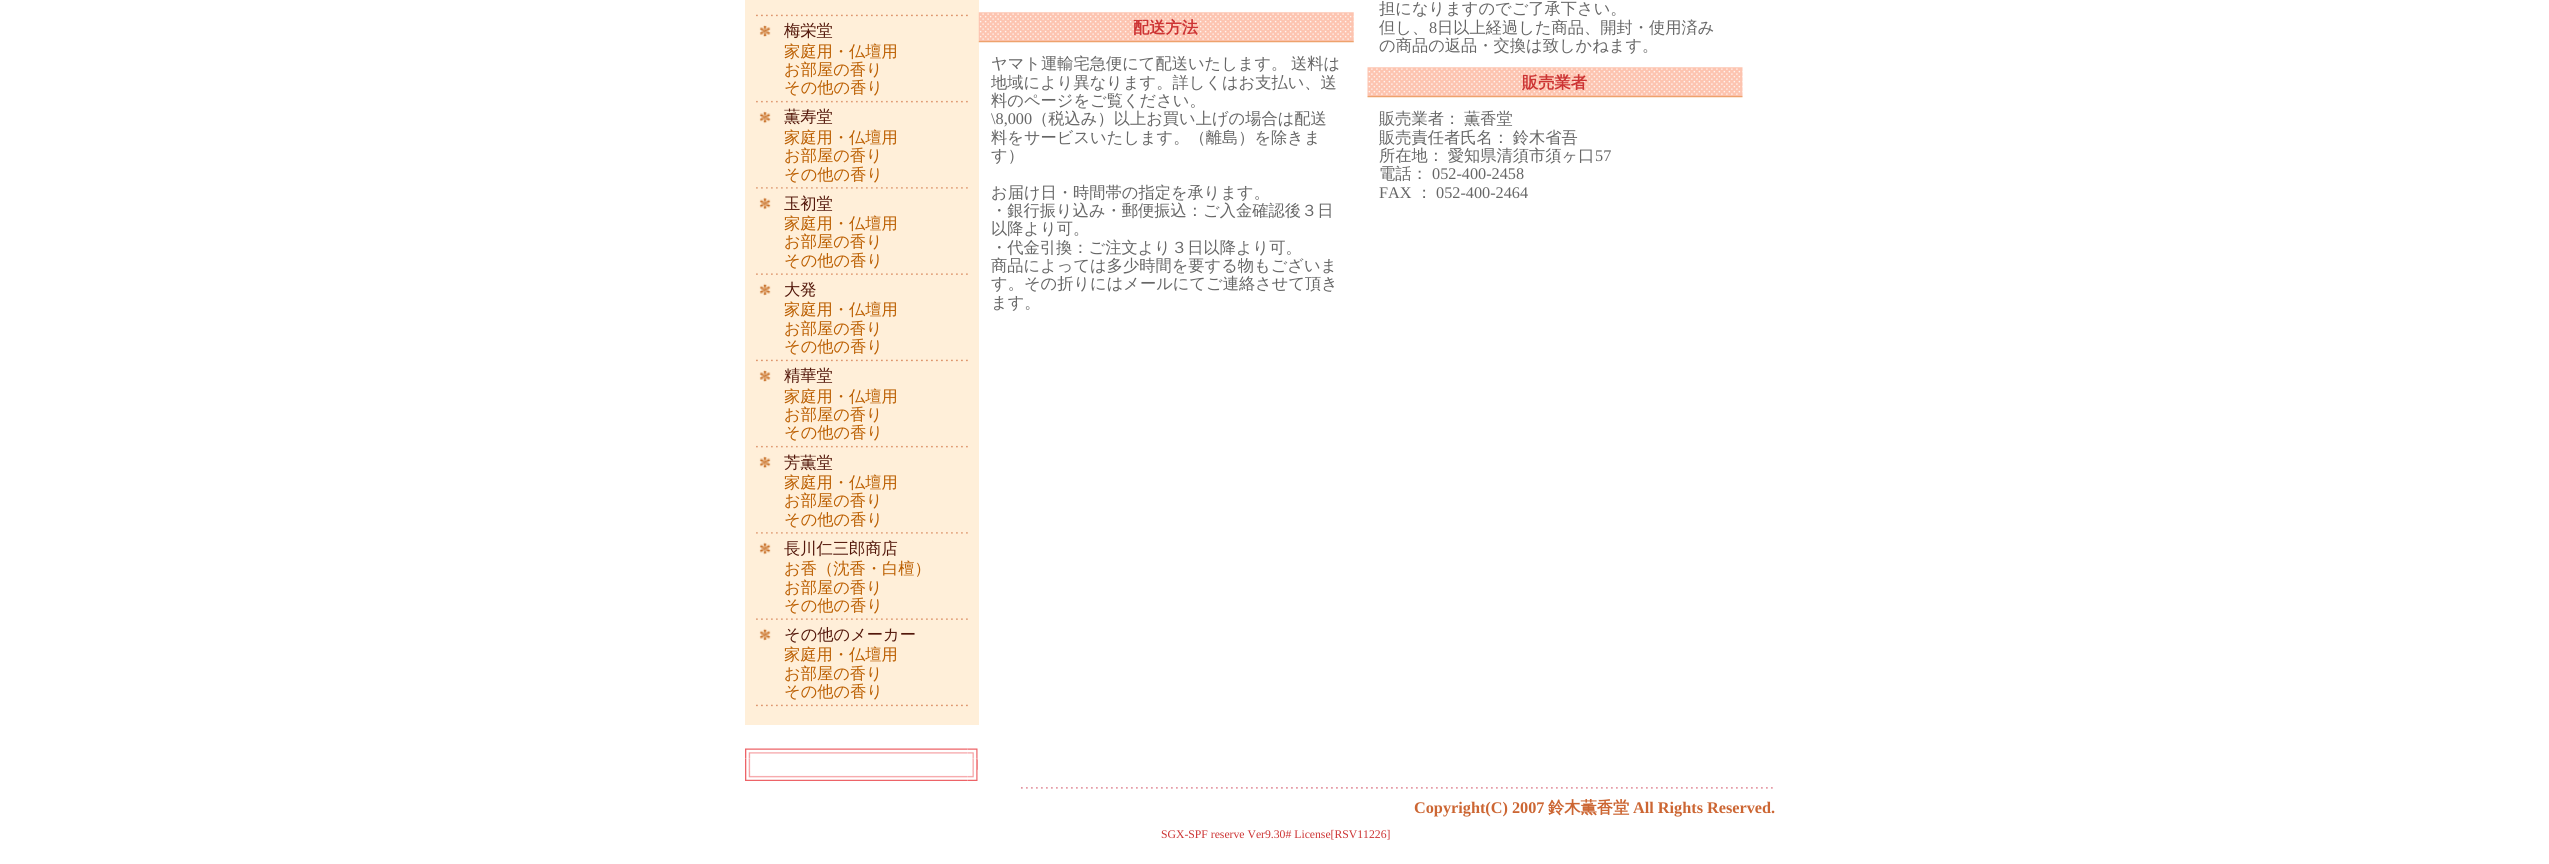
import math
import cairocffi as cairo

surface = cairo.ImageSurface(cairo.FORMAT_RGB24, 2549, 864)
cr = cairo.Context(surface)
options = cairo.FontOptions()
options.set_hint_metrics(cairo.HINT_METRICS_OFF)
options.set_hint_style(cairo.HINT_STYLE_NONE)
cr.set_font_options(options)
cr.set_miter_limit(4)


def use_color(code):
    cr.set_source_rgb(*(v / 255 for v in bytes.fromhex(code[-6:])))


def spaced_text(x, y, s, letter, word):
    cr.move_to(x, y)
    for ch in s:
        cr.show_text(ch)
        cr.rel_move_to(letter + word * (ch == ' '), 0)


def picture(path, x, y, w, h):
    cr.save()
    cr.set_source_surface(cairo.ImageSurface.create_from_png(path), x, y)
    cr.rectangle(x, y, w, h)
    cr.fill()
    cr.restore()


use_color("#ffffff")
cr.paint()
use_color("#ffefd9")
cr.rectangle(745, 0, 234, 725)
cr.fill()
picture("img1.png", 756, 14, 212, 3)
picture("img2.png", 759, 25, 12, 12)
cr.select_font_face("WenQuanYi Zen Hei Medium")
cr.set_font_size(16.25)
use_color("#53170a")
cr.move_to(784, 36)
cr.show_text("梅栄堂")
use_color("#bb5e00")
cr.move_to(784, 57)
cr.show_text("家庭用・仏壇用")
cr.move_to(784, 75)
cr.show_text("お部屋の香り")
cr.move_to(784, 93)
cr.show_text("その他の香り")
picture("img3.png", 756, 100, 212, 3)
picture("img4.png", 759, 111, 12, 13)
use_color("#53170a")
cr.move_to(784, 122)
cr.show_text("薫寿堂")
use_color("#bb5e00")
cr.move_to(784, 143)
cr.show_text("家庭用・仏壇用")
cr.move_to(784, 161)
cr.show_text("お部屋の香り")
cr.move_to(784, 180)
cr.show_text("その他の香り")
picture("img5.png", 756, 187, 212, 2)
picture("img6.png", 759, 197, 12, 13)
use_color("#53170a")
cr.move_to(784, 209)
cr.show_text("玉初堂")
use_color("#bb5e00")
cr.move_to(784, 229)
cr.show_text("家庭用・仏壇用")
cr.move_to(784, 247)
cr.show_text("お部屋の香り")
cr.move_to(784, 266)
cr.show_text("その他の香り")
picture("img7.png", 756, 273, 212, 2)
picture("img8.png", 759, 283, 12, 13)
use_color("#53170a")
cr.move_to(784, 295)
cr.show_text("大発")
use_color("#bb5e00")
cr.move_to(784, 315)
cr.show_text("家庭用・仏壇用")
cr.move_to(784, 334)
cr.show_text("お部屋の香り")
cr.move_to(784, 352)
cr.show_text("その他の香り")
picture("img1.png", 756, 359, 212, 3)
picture("img2.png", 759, 370, 12, 12)
use_color("#53170a")
cr.move_to(784, 381)
cr.show_text("精華堂")
use_color("#bb5e00")
cr.move_to(784, 402)
cr.show_text("家庭用・仏壇用")
cr.move_to(784, 420)
cr.show_text("お部屋の香り")
cr.move_to(784, 438)
cr.show_text("その他の香り")
picture("img3.png", 756, 445, 212, 3)
picture("img9.png", 759, 456, 12, 13)
use_color("#53170a")
cr.move_to(784, 468)
cr.show_text("芳薫堂")
use_color("#bb5e00")
cr.move_to(784, 488)
cr.show_text("家庭用・仏壇用")
cr.move_to(784, 506)
cr.show_text("お部屋の香り")
cr.move_to(784, 525)
cr.show_text("その他の香り")
picture("img5.png", 756, 532, 212, 2)
picture("img6.png", 759, 542, 12, 13)
use_color("#53170a")
cr.move_to(784, 554)
cr.show_text("長川仁三郎商店")
use_color("#bb5e00")
cr.move_to(784, 574)
cr.show_text("お香（沈香・白檀）")
cr.move_to(784, 593)
cr.show_text("お部屋の香り")
cr.move_to(784, 611)
cr.show_text("その他の香り")
picture("img7.png", 756, 618, 212, 2)
picture("img8.png", 759, 628, 12, 13)
use_color("#53170a")
cr.move_to(784, 640)
cr.show_text("その他のメーカー")
use_color("#bb5e00")
cr.move_to(784, 660)
cr.show_text("家庭用・仏壇用")
cr.move_to(784, 679)
cr.show_text("お部屋の香り")
cr.move_to(784, 697)
cr.show_text("その他の香り")
picture("img1.png", 756, 704, 212, 3)
picture("img13.png", 745, 758, 6, 13)
picture("img10.png", 745, 748, 10, 11)
picture("img11.png", 755, 748, 213, 6)
picture("img14.png", 972, 758, 6, 13)
picture("img12.png", 967, 748, 11, 11)
use_color("#fce7e8")
cr.rectangle(748, 760, 1, 9)
cr.fill()
picture("img15.png", 972, 759, 6, 11)
picture("img16.png", 745, 771, 10, 10)
picture("img17.png", 755, 775, 213, 6)
picture("img18.png", 967, 771, 11, 10)
picture("img19.png", 978, 12, 376, 31)
cr.select_font_face("WenQuanYi Zen Hei", cairo.FONT_SLANT_NORMAL, cairo.FONT_WEIGHT_BOLD)
use_color("#cc3333")
cr.move_to(1133, 33)
cr.show_text("配送方法")
cr.select_font_face("WenQuanYi Zen Hei Medium")
use_color("#666666")
cr.move_to(991, 69)
cr.show_text("ヤマト運輸宅急便にて配送いたします。")
cr.move_to(1291, 69)
cr.show_text("送料は")
cr.move_to(991, 88)
cr.show_text("地域により異なります。詳しくはお支払い、送")
cr.move_to(991, 106)
cr.show_text("料のページをご覧ください。")
cr.select_font_face("Liberation Serif")
cr.move_to(991, 124)
cr.show_text("\\8,000")
cr.select_font_face("WenQuanYi Zen Hei Medium")
cr.move_to(1032, 124)
cr.show_text("（税込み）以上お買い上げの場合は配送")
cr.move_to(991, 143)
cr.show_text("料をサービスいたします。（離島）を除きま")
cr.move_to(991, 161)
cr.show_text("す）")
cr.move_to(991, 198)
cr.show_text("お届け日・時間帯の指定を承ります。")
cr.move_to(991, 216)
cr.show_text("・銀行振り込み・郵便振込：ご入金確認後３日")
cr.move_to(991, 234)
cr.show_text("以降より可。")
cr.move_to(991, 253)
cr.show_text("・代金引換：ご注文より３日以降より可。")
cr.move_to(991, 271)
cr.show_text("商品によっては多少時間を要する物もございま")
cr.move_to(991, 289)
cr.show_text("す。その折りにはメールにてご連絡させて頂き")
cr.move_to(991, 308)
cr.show_text("ます。")
cr.move_to(1379, 14)
cr.show_text("担になりますのでご了承下さい。")
cr.move_to(1379, 33)
cr.show_text("但し、")
cr.select_font_face("Liberation Serif")
cr.move_to(1429, 33)
cr.show_text("8")
cr.select_font_face("WenQuanYi Zen Hei Medium")
cr.move_to(1437, 33)
cr.show_text("日以上経過した商品、開封・使用済み")
cr.move_to(1379, 51)
cr.show_text("の商品の返品・交換は致しかねます。")
picture("img20.png", 1367, 67, 376, 31)
cr.select_font_face("WenQuanYi Zen Hei", cairo.FONT_SLANT_NORMAL, cairo.FONT_WEIGHT_BOLD)
use_color("#cc3333")
cr.move_to(1522, 88)
cr.show_text("販売業者")
cr.select_font_face("WenQuanYi Zen Hei Medium")
use_color("#666666")
spaced_text(1379, 124, "販売業者： 薫香堂", 0, -1)
spaced_text(1379, 143, "販売責任者氏名： 鈴木省吾", 0, -1)
spaced_text(1379, 161, "所在地： 愛知県清須市須ヶ口", 0, -1)
cr.select_font_face("Liberation Serif")
cr.move_to(1595, 161)
cr.show_text("57")
cr.select_font_face("WenQuanYi Zen Hei Medium")
cr.move_to(1379, 179)
cr.show_text("電話：")
cr.select_font_face("Liberation Serif")
cr.move_to(1432, 179)
cr.show_text("052-400-2458")
cr.move_to(1379, 198)
cr.show_text("FAX")
cr.select_font_face("WenQuanYi Zen Hei Medium")
cr.move_to(1416, 198)
cr.show_text("：")
cr.select_font_face("Liberation Serif")
cr.move_to(1436, 198)
cr.show_text("052-400-2464")
picture("img21.png", 1021, 787, 752, 2)
cr.select_font_face("Liberation Serif", cairo.FONT_SLANT_NORMAL, cairo.FONT_WEIGHT_BOLD)
use_color("#cc6633")
cr.move_to(1414, 813)
cr.show_text("Copyright(C) 2007")
cr.select_font_face("WenQuanYi Zen Hei", cairo.FONT_SLANT_NORMAL, cairo.FONT_WEIGHT_BOLD)
cr.move_to(1548, 813)
cr.show_text("鈴木薫香堂")
cr.select_font_face("Liberation Serif", cairo.FONT_SLANT_NORMAL, cairo.FONT_WEIGHT_BOLD)
cr.move_to(1633, 813)
cr.show_text("All Rights Reserved.")
cr.select_font_face("Liberation Serif")
cr.set_font_size(11.7)
use_color("#cc3333")
cr.move_to(1161, 838)
cr.show_text("SGX-SPF reserve Ver9.30# License[RSV11226]")
surface.write_to_png("result.png")
